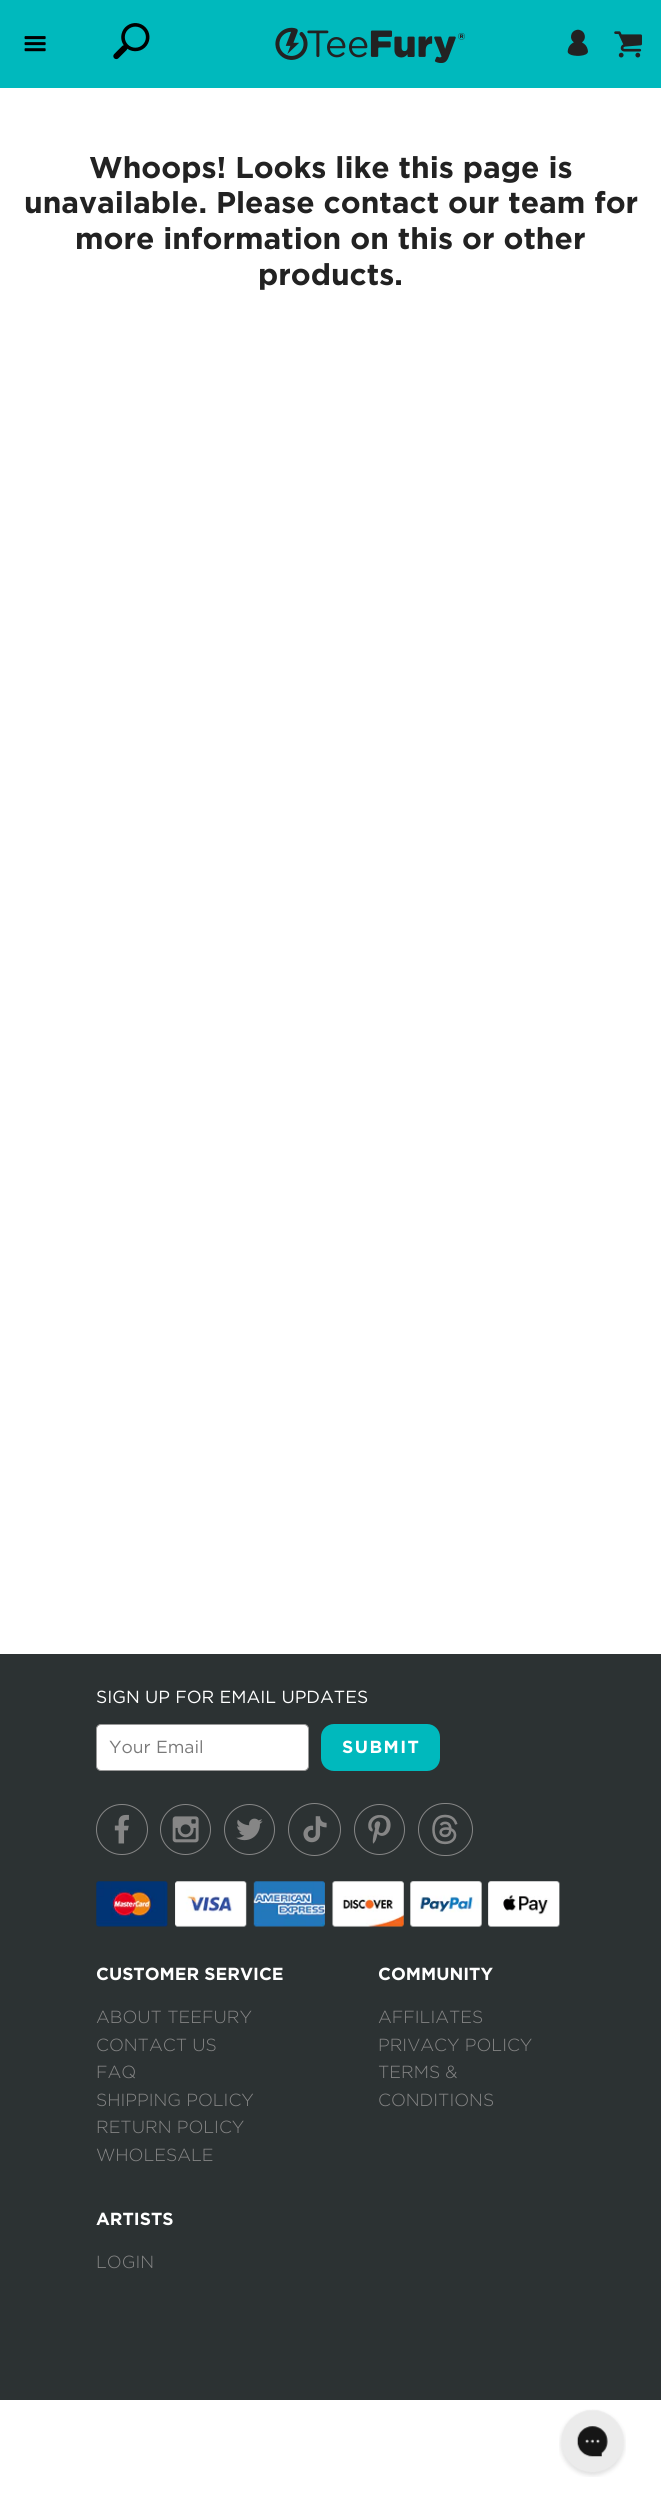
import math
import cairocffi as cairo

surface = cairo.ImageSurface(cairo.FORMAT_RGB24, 661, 2506)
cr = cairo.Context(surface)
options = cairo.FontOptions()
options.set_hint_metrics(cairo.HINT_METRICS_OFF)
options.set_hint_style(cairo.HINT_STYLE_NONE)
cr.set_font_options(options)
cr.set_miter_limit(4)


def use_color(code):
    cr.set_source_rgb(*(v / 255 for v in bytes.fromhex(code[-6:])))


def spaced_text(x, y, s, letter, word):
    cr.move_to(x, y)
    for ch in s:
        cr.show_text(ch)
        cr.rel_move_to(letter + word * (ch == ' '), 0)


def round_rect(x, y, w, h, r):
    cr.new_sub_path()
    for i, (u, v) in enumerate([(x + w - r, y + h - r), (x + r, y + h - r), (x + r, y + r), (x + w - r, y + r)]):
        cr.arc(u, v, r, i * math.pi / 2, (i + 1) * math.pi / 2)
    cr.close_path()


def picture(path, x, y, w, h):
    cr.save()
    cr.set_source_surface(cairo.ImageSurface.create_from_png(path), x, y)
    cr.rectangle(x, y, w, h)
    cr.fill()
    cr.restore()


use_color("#ffffff")
cr.paint()
use_color("#00b9bd")
cr.rectangle(0, 0, 661, 88)
cr.fill()
picture("img1.png", 24, 36, 22, 16)
picture("img2.png", 113, 23, 37, 37)
picture("img3.png", 275, 27, 190, 36)
picture("img4.png", 567, 29, 21, 27)
picture("img5.png", 614, 31, 28, 27)
cr.select_font_face("Gotham", cairo.FONT_SLANT_NORMAL, cairo.FONT_WEIGHT_BOLD)
cr.set_font_size(30)
use_color("#222222")
cr.move_to(89, 178)
cr.show_text("Whoops! Looks like this page is")
cr.move_to(24, 213)
cr.show_text("unavailable. Please contact our team for")
cr.move_to(75, 249)
cr.show_text("more information on this or other")
cr.move_to(258, 285)
cr.show_text("products.")
use_color("#2c3233")
cr.rectangle(0, 1654, 661, 746)
cr.fill()
cr.select_font_face("Gotham")
cr.set_font_size(17.5)
use_color("#ffffff")
cr.move_to(96, 1703)
cr.show_text("SIGN UP FOR EMAIL UPDATES")
round_rect(96.5, 1724.5, 212, 46, 4.5)
cr.fill_preserve()
use_color("#989898")
cr.set_line_width(1)
cr.stroke()
use_color("#7a7a7a")
cr.move_to(109, 1753)
cr.show_text("Your Email")
use_color("#00b9bd")
round_rect(321, 1724, 119, 47, 13)
cr.fill()
cr.select_font_face("Gotham", cairo.FONT_SLANT_NORMAL, cairo.FONT_WEIGHT_BOLD)
use_color("#ffffff")
spaced_text(342, 1753, "SUBMIT", 1.5, 0)
round_rect(96.5, 1804.5, 51, 50, 25)
use_color("#868686")
cr.stroke()
picture("img6.png", 114, 1814, 15, 30)
cr.arc(185.5, 1829.5, 25, 0, 2 * math.pi)
cr.stroke()
picture("img7.png", 172, 1816, 27, 27)
cr.arc(249.5, 1829.5, 25, 0, 2 * math.pi)
cr.stroke()
picture("img8.png", 236, 1818, 27, 23)
cr.arc(314.5, 1829.5, 26, 0, 2 * math.pi)
cr.stroke()
picture("img9.png", 303, 1816, 24, 27)
cr.arc(379.5, 1829.5, 25, 0, 2 * math.pi)
cr.stroke()
picture("img10.png", 368, 1815, 23, 29)
round_rect(418.5, 1803.5, 54, 52, 26)
cr.stroke()
picture("img11.png", 432, 1814, 26, 31)
picture("img12.png", 96, 1881, 464, 46)
use_color("#ffffff")
cr.move_to(96, 1980)
cr.show_text("CUSTOMER SERVICE")
cr.select_font_face("Gotham Light")
use_color("#868686")
cr.move_to(96, 2023)
cr.show_text("ABOUT TEEFURY")
cr.move_to(96, 2051)
cr.show_text("CONTACT US")
cr.move_to(96, 2078)
cr.show_text("FAQ")
cr.move_to(96, 2106)
cr.show_text("SHIPPING POLICY")
cr.move_to(96, 2133)
cr.show_text("RETURN POLICY")
cr.move_to(96, 2161)
cr.show_text("WHOLESALE")
cr.select_font_face("Gotham", cairo.FONT_SLANT_NORMAL, cairo.FONT_WEIGHT_BOLD)
use_color("#ffffff")
cr.move_to(378, 1980)
cr.show_text("COMMUNITY")
cr.select_font_face("Gotham Light")
use_color("#868686")
cr.move_to(378, 2023)
cr.show_text("AFFILIATES")
cr.move_to(378, 2051)
cr.show_text("PRIVACY POLICY")
cr.move_to(378, 2078)
cr.show_text("TERMS &")
cr.move_to(378, 2106)
cr.show_text("CONDITIONS")
cr.select_font_face("Gotham", cairo.FONT_SLANT_NORMAL, cairo.FONT_WEIGHT_BOLD)
use_color("#ffffff")
cr.move_to(96, 2225)
cr.show_text("ARTISTS")
cr.select_font_face("Gotham Light")
use_color("#868686")
cr.move_to(96, 2268)
cr.show_text("LOGIN")
picture("img13.png", 559, 2409, 67, 68)
surface.write_to_png("result.png")
